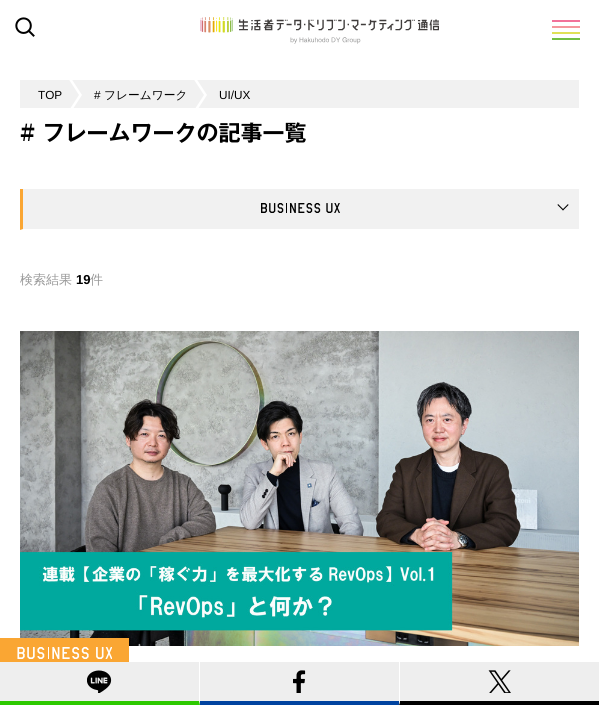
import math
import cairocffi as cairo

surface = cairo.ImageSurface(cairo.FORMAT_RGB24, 599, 705)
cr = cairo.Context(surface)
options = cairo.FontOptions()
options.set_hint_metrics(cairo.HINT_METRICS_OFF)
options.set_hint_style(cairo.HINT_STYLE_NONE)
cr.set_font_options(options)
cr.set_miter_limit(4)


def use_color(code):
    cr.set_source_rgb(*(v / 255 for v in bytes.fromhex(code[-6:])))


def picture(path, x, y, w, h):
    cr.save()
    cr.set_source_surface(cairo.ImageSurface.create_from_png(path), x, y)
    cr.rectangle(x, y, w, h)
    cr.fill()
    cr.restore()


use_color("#ffffff")
cr.paint()
picture("img1.png", 15, 17, 20, 20)
picture("img2.png", 200, 17, 239, 27)
use_color("#f2729a")
cr.rectangle(552, 20, 28, 2)
cr.fill()
use_color("#f5979d")
cr.rectangle(552, 26, 28, 2)
cr.fill()
use_color("#e0e157")
cr.rectangle(552, 32, 28, 2)
cr.fill()
use_color("#72bf44")
cr.rectangle(552, 38, 28, 2)
cr.fill()
use_color("#f1f1f1")
cr.rectangle(20, 80, 559, 28)
cr.fill()
cr.save()
cr.rectangle(20, 80, 559, 28)
cr.clip()
use_color("#ffffff")
cr.new_path()
cr.move_to(69, 115)
cr.line_to(69, 75)
cr.line_to(82, 95)
cr.close_path()
cr.fill()
use_color("#f1f1f1")
cr.new_path()
cr.move_to(66, 115)
cr.line_to(66, 75)
cr.line_to(79, 95)
cr.close_path()
cr.fill()
cr.restore()
cr.select_font_face("Liberation Sans")
cr.set_font_size(11.75)
use_color("#000000")
cr.move_to(38, 99)
cr.show_text("TOP")
cr.save()
cr.rectangle(20, 80, 559, 28)
cr.clip()
use_color("#ffffff")
cr.new_path()
cr.move_to(194, 115)
cr.line_to(194, 75)
cr.line_to(207, 95)
cr.close_path()
cr.fill()
use_color("#f1f1f1")
cr.new_path()
cr.move_to(191, 115)
cr.line_to(191, 75)
cr.line_to(204, 95)
cr.close_path()
cr.fill()
cr.restore()
cr.move_to(94, 99)
cr.show_text("#")
cr.select_font_face("WenQuanYi Zen Hei Medium")
cr.move_to(104, 99)
cr.show_text("フレームワーク")
cr.select_font_face("Liberation Sans")
cr.move_to(219, 99)
cr.show_text("UI/UX")
cr.select_font_face("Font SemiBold")
cr.set_font_size(22)
cr.move_to(20, 141)
cr.show_text("# フレームワークの記事一覧")
use_color("#f1f1f1")
cr.rectangle(20, 189, 559, 41)
cr.fill()
use_color("#ffffff")
cr.new_path()
cr.move_to(579, 230)
cr.line_to(20, 230)
cr.line_to(23, 229)
cr.line_to(579, 229)
cr.close_path()
cr.fill()
use_color("#faa633")
cr.new_path()
cr.move_to(20, 230)
cr.line_to(20, 189)
cr.line_to(23, 189)
cr.line_to(23, 229)
cr.close_path()
cr.fill()
picture("img3.png", 261, 203, 79, 10)
use_color("#000000")
cr.new_path()
cr.move_to(568.5, 205)
cr.line_to(563, 210.5)
cr.line_to(562.5, 209.5)
cr.line_to(568, 204)
cr.close_path()
cr.fill()
cr.new_path()
cr.move_to(563.5, 209.5)
cr.line_to(563, 210.5)
cr.line_to(557.5, 205)
cr.line_to(558, 204)
cr.close_path()
cr.fill()
cr.select_font_face("WenQuanYi Zen Hei Medium")
cr.set_font_size(13)
use_color("#999999")
cr.move_to(20, 284)
cr.show_text("検索結果")
cr.select_font_face("Liberation Sans", cairo.FONT_SLANT_NORMAL, cairo.FONT_WEIGHT_BOLD)
use_color("#000000")
cr.move_to(76, 284)
cr.show_text("19")
cr.select_font_face("WenQuanYi Zen Hei Medium")
use_color("#999999")
cr.move_to(90, 284)
cr.show_text("件")
picture("img4.png", 20, 331, 559, 315)
use_color("#faa633")
cr.rectangle(0, 638, 129, 24)
cr.fill()
picture("img5.png", 17, 647, 95, 12)
use_color("#eeeeee")
cr.rectangle(0, 662, 200, 43)
cr.fill()
use_color("#ffffff")
cr.new_path()
cr.move_to(200, 662)
cr.line_to(200, 705)
cr.line_to(199, 701)
cr.line_to(199, 662)
cr.close_path()
cr.fill()
use_color("#2dc900")
cr.new_path()
cr.move_to(200, 705)
cr.line_to(0, 705)
cr.line_to(0, 701)
cr.line_to(199, 701)
cr.close_path()
cr.fill()
picture("img6.png", 87, 670, 25, 23)
use_color("#eeeeee")
cr.rectangle(200, 662, 199, 39)
cr.fill()
use_color("#00439f")
cr.rectangle(200, 701, 199, 4)
cr.fill()
picture("img7.png", 293, 670, 13, 23)
use_color("#eeeeee")
cr.rectangle(399, 662, 200, 43)
cr.fill()
use_color("#000000")
cr.new_path()
cr.move_to(599, 705)
cr.line_to(399, 705)
cr.line_to(400, 701)
cr.line_to(599, 701)
cr.close_path()
cr.fill()
use_color("#ffffff")
cr.new_path()
cr.move_to(399, 705)
cr.line_to(399, 662)
cr.line_to(400, 662)
cr.line_to(400, 701)
cr.close_path()
cr.fill()
picture("img8.png", 488, 670, 23, 23)
surface.write_to_png("result.png")
